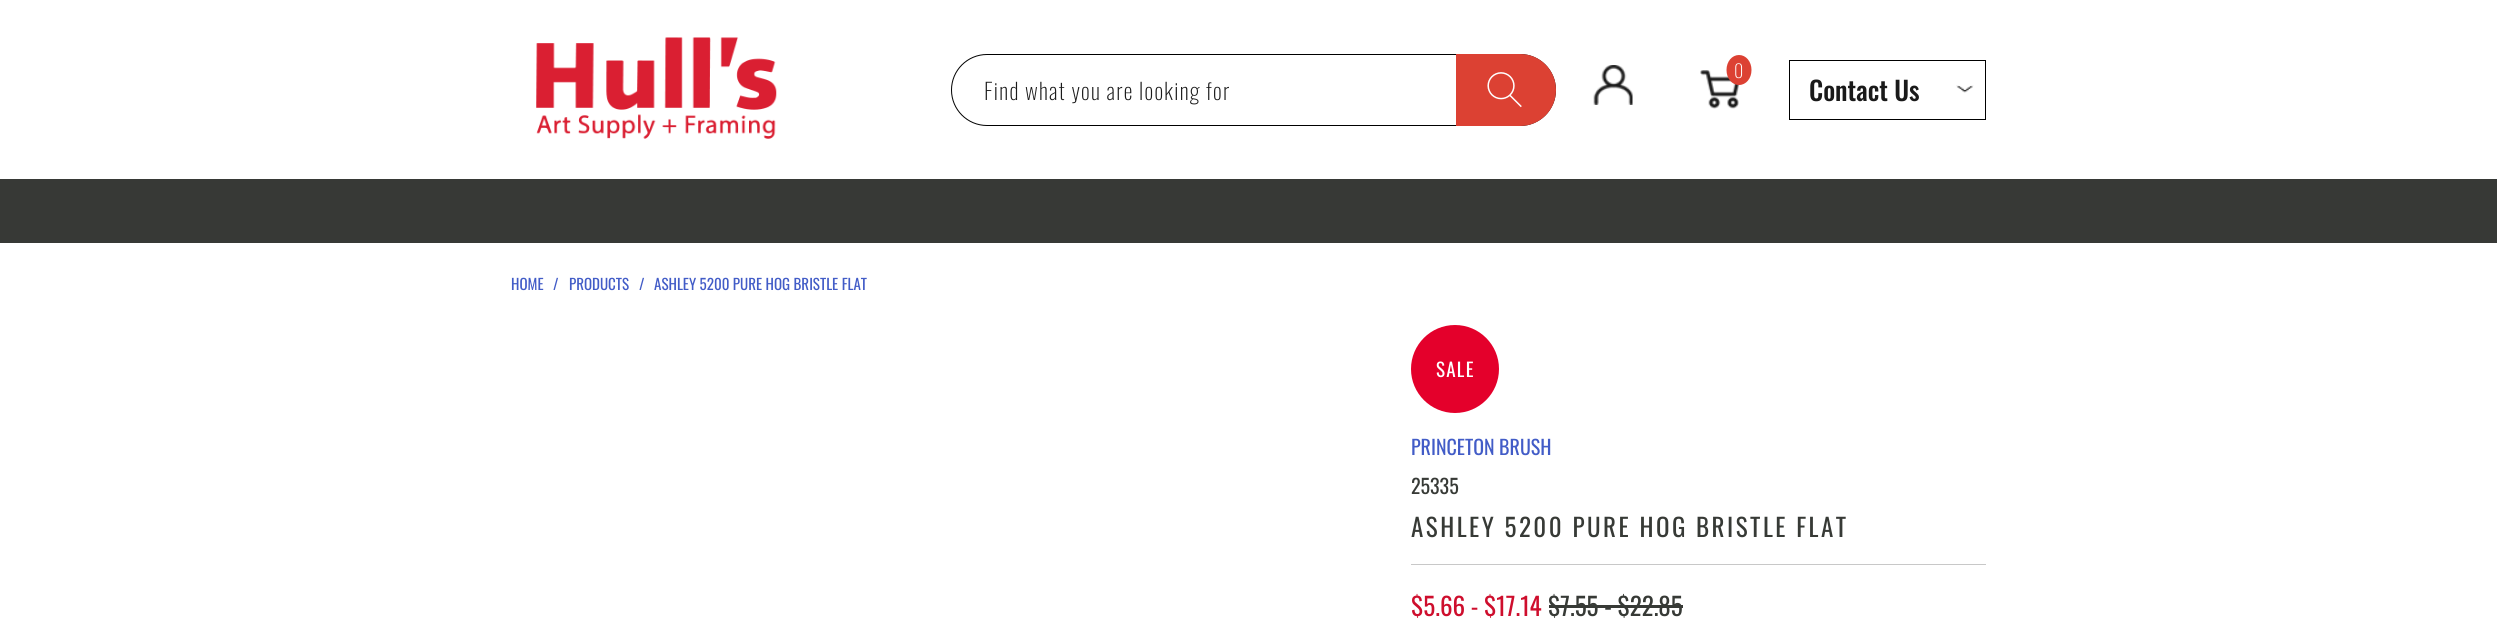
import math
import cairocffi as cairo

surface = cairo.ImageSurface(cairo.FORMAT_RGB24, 2497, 644)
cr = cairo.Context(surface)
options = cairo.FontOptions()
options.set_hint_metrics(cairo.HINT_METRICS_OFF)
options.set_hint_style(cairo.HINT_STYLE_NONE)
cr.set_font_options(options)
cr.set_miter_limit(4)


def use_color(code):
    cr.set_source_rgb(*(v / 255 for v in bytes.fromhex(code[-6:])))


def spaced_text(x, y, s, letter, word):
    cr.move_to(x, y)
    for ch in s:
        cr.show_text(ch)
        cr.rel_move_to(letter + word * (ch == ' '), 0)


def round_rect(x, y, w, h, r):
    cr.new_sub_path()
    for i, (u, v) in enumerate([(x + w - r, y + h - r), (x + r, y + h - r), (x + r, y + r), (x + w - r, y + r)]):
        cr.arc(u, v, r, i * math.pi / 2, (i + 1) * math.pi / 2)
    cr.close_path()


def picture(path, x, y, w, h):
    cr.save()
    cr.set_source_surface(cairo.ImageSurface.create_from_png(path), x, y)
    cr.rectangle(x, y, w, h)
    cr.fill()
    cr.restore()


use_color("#ffffff")
cr.paint()
picture("img1.png", 536, 37, 241, 102)
round_rect(951.5, 54.5, 604, 71, 35.5)
use_color("#000000")
cr.set_line_width(1)
cr.stroke()
cr.select_font_face("Oswald ExtraLight")
cr.set_font_size(22.5)
use_color("#1a1a1a")
spaced_text(984, 100, "Find what you are looking for", 1.25, 0)
use_color("#dc4133")
cr.new_path()
cr.move_to(1456, 54)
cr.line_to(1520, 54)
cr.curve_to(1540, 54, 1556, 70, 1556, 90)
cr.curve_to(1556, 110, 1540, 126, 1520, 126)
cr.line_to(1456, 126)
cr.close_path()
cr.fill()
picture("img2.png", 1487, 72, 35, 36)
picture("img3.png", 1593, 65, 40, 40)
picture("img4.png", 1700, 70, 40, 39)
cr.new_path()
cr.move_to(1739, 55)
cr.curve_to(1746, 55, 1751.5, 61.5, 1751.5, 70)
cr.curve_to(1751.5, 78.5, 1746, 85, 1739, 85)
cr.curve_to(1732, 85, 1726.5, 78.5, 1726.5, 70)
cr.curve_to(1726.5, 61.5, 1732, 55, 1739, 55)
cr.close_path()
cr.fill()
cr.set_font_size(18)
use_color("#ffffff")
cr.move_to(1734, 78)
cr.show_text("0")
cr.rectangle(1789.5, 60.5, 196, 59)
use_color("#000000")
cr.stroke()
cr.select_font_face("Oswald Medium")
cr.set_font_size(26.25)
use_color("#1a1a1a")
cr.move_to(1809, 101)
cr.show_text("Contact Us")
picture("img5.png", 1956, 85, 18, 8)
use_color("#373936")
cr.rectangle(0, 179, 2497, 64)
cr.fill()
cr.select_font_face("Oswald")
cr.set_font_size(15)
use_color("#425cc7")
cr.move_to(511, 290)
cr.show_text("HOME")
cr.move_to(553, 290)
cr.show_text("/")
cr.move_to(569, 290)
cr.show_text("PRODUCTS")
cr.move_to(639, 290)
cr.show_text("/")
cr.move_to(654, 290)
cr.show_text("ASHLEY 5200 PURE HOG BRISTLE FLAT")
use_color("#e4002b")
cr.new_path()
cr.arc(1455, 369, 44, 0, 2 * math.pi)
cr.fill()
cr.set_font_size(19)
use_color("#ffffff")
spaced_text(1436, 377, "SALE", 1.25, 0)
cr.set_font_size(20)
use_color("#425cc7")
cr.move_to(1411, 455)
cr.show_text("PRINCETON BRUSH")
use_color("#373a36")
cr.move_to(1411, 494)
cr.show_text("25335")
cr.set_font_size(25)
spaced_text(1411, 537, "ASHLEY 5200 PURE HOG BRISTLE FLAT", 2.5, 0)
use_color("#c8c8c8")
cr.rectangle(1411, 564, 575, 1)
cr.fill()
use_color("#ce0e2d")
cr.move_to(1411, 616)
cr.show_text("$5.66 - $17.14")
use_color("#373a36")
cr.move_to(1548, 616)
cr.show_text("$7.55 - $22.85")
cr.rectangle(1549, 605, 134, 3)
cr.fill()
surface.write_to_png("result.png")
